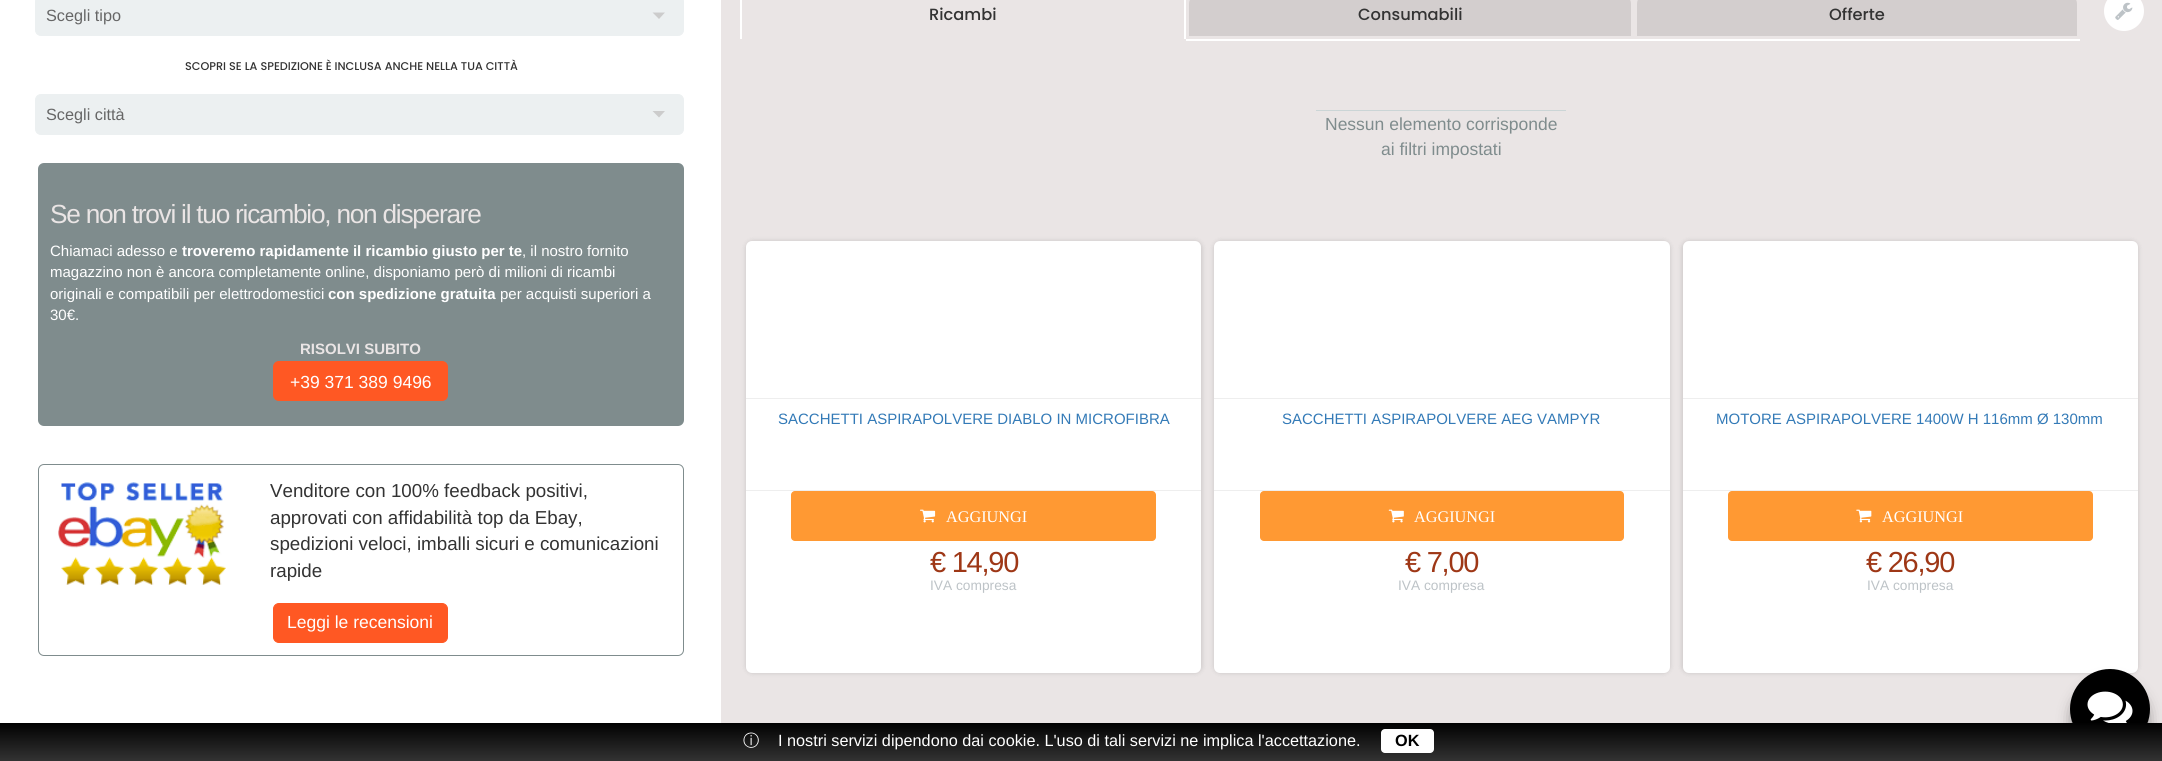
import math
import cairocffi as cairo

surface = cairo.ImageSurface(cairo.FORMAT_RGB24, 2162, 761)
cr = cairo.Context(surface)
options = cairo.FontOptions()
options.set_hint_metrics(cairo.HINT_METRICS_OFF)
options.set_hint_style(cairo.HINT_STYLE_NONE)
cr.set_font_options(options)
cr.set_miter_limit(4)


def use_color(code):
    cr.set_source_rgb(*(v / 255 for v in bytes.fromhex(code[-6:])))


def spaced_text(x, y, s, letter, word):
    cr.move_to(x, y)
    for ch in s:
        cr.show_text(ch)
        cr.rel_move_to(letter + word * (ch == ' '), 0)


def round_rect(x, y, w, h, r):
    cr.new_sub_path()
    for i, (u, v) in enumerate([(x + w - r, y + h - r), (x + r, y + h - r), (x + r, y + r), (x + w - r, y + r)]):
        cr.arc(u, v, r, i * math.pi / 2, (i + 1) * math.pi / 2)
    cr.close_path()


def shadow(x, y, w, h, r, blur, alpha):
    cr.push_group_with_content(cairo.CONTENT_ALPHA)
    cr.set_operator(cairo.OPERATOR_SOURCE)
    for i in range(15, -16, -2):
        e = blur * i / 6
        if min(w, h) + 2 * e > 0:
            cr.set_source_rgba(0, 0, 0, alpha * math.erfc((i - 1) / 8.5) / 2)
            round_rect(x - e, y - e, w + 2 * e, h + 2 * e, max(0, min(r + e + blur * .6, min(w, h) / 2 + e)))
            cr.fill()
    cr.mask(cr.pop_group())


def picture(path, x, y, w, h):
    cr.save()
    cr.set_source_surface(cairo.ImageSurface.create_from_png(path), x, y)
    cr.rectangle(x, y, w, h)
    cr.fill()
    cr.restore()


use_color("#ffffff")
cr.paint()
use_color("#ecf0f1")
round_rect(35.5, -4.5, 648, 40, 5.5)
cr.fill_preserve()
cr.set_line_width(1)
cr.stroke()
cr.select_font_face("Liberation Sans")
cr.set_font_size(16.25)
use_color("#666666")
cr.move_to(46, 21)
cr.show_text("Scegli tipo")
use_color("#cccccc")
cr.new_path()
cr.move_to(652.5, 12.5)
cr.line_to(665, 12.5)
cr.line_to(659, 19)
cr.close_path()
cr.fill()
cr.select_font_face("Poppins Medium")
cr.set_font_size(11.25)
use_color("#333333")
cr.move_to(185, 70)
cr.show_text("SCOPRI SE LA SPEDIZIONE È INCLUSA ANCHE NELLA TUA CITTÀ")
use_color("#ecf0f1")
round_rect(35.5, 94.5, 648, 40, 5.5)
cr.fill_preserve()
cr.stroke()
cr.select_font_face("Liberation Sans")
cr.set_font_size(16.25)
use_color("#666666")
cr.move_to(46, 120)
cr.show_text("Scegli città")
use_color("#cccccc")
cr.new_path()
cr.move_to(652.5, 111)
cr.line_to(665, 111)
cr.line_to(659, 117.5)
cr.close_path()
cr.fill()
use_color("#7f8c8d")
round_rect(38, 163, 646, 263, 6)
cr.fill()
cr.set_font_size(26.25)
use_color("#eae5e5")
spaced_text(50, 223, "Se non trovi il tuo ricambio, non disperare", -1.25, 0)
cr.set_font_size(15)
use_color("#ffffff")
cr.move_to(50, 256)
cr.show_text("Chiamaci adesso e")
cr.select_font_face("Liberation Sans", cairo.FONT_SLANT_NORMAL, cairo.FONT_WEIGHT_BOLD)
cr.move_to(182, 256)
cr.show_text("troveremo rapidamente il ricambio giusto per te")
cr.select_font_face("Liberation Sans")
cr.move_to(522, 256)
cr.show_text(", il nostro fornito")
cr.move_to(50, 277)
cr.show_text("magazzino non è ancora completamente online, disponiamo però di milioni di ricambi")
cr.move_to(50, 299)
cr.show_text("originali e compatibili per elettrodomestici")
cr.select_font_face("Liberation Sans", cairo.FONT_SLANT_NORMAL, cairo.FONT_WEIGHT_BOLD)
cr.move_to(328, 299)
cr.show_text("con spedizione gratuita")
cr.select_font_face("Liberation Sans")
cr.move_to(500, 299)
cr.show_text("per acquisti superiori a")
cr.move_to(50, 320)
cr.show_text("30€.")
cr.select_font_face("Liberation Sans", cairo.FONT_SLANT_NORMAL, cairo.FONT_WEIGHT_BOLD)
use_color("#eae5e5")
cr.move_to(300, 354)
cr.show_text("RISOLVI SUBITO")
use_color("#ff5823")
round_rect(273.5, 361.5, 174, 39, 5.5)
cr.fill_preserve()
cr.stroke()
cr.select_font_face("Liberation Sans")
cr.set_font_size(17.5)
use_color("#ffffff")
cr.move_to(290, 388)
cr.show_text("+39 371 389 9496")
round_rect(38.5, 464.5, 645, 191, 5.5)
use_color("#7f8c8d")
cr.stroke()
picture("img1.png", 58, 482, 168, 103)
cr.set_font_size(18.75)
use_color("#333333")
cr.move_to(270, 497)
cr.show_text("Venditore con 100% feedback positivi,")
cr.move_to(270, 524)
cr.show_text("approvati con affidabilità top da Ebay,")
cr.move_to(270, 550)
cr.show_text("spedizioni veloci, imballi sicuri e comunicazioni")
cr.move_to(270, 577)
cr.show_text("rapide")
use_color("#ff5823")
round_rect(273.5, 603.5, 174, 39, 5.5)
cr.fill_preserve()
cr.stroke()
cr.set_font_size(17.5)
use_color("#ffffff")
cr.move_to(287, 628)
cr.show_text("Leggi le recensioni")
use_color("#eae5e5")
cr.rectangle(721, 0, 1441, 723)
cr.fill()
use_color("#ffffff")
cr.set_fill_rule(cairo.FILL_RULE_EVEN_ODD)
cr.new_path()
cr.move_to(746, -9)
cr.line_to(1180, -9)
cr.curve_to(1183, -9, 1186, -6, 1186, -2)
cr.line_to(1186, 39)
cr.line_to(740, 39)
cr.line_to(740, -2)
cr.curve_to(740, -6, 743, -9, 746, -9)
cr.close_path()
cr.move_to(746, -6)
cr.line_to(1180, -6)
cr.curve_to(1182, -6, 1184, -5, 1184, -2)
cr.line_to(1184, 39)
cr.line_to(742, 39)
cr.line_to(742, -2)
cr.curve_to(742, -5, 744, -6, 746, -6)
cr.close_path()
cr.fill()
cr.select_font_face("Poppins Medium")
cr.set_font_size(16.25)
use_color("#333333")
cr.move_to(929, 20)
cr.show_text("Ricambi")
use_color("#ffffff")
cr.rectangle(1186, 39, 894, 2)
cr.fill()
use_color("#d3cece")
cr.new_path()
cr.move_to(1199, -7.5)
cr.line_to(1621, -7.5)
cr.curve_to(1627.5, -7.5, 1632.5, -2.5, 1632.5, 4)
cr.line_to(1632.5, 37.5)
cr.line_to(1187.5, 37.5)
cr.line_to(1187.5, 4)
cr.curve_to(1187.5, -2.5, 1192.5, -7.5, 1199, -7.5)
cr.close_path()
cr.fill_preserve()
use_color("#eae5e5")
cr.set_line_width(3)
cr.stroke()
use_color("#333333")
cr.move_to(1358, 20)
cr.show_text("Consumabili")
use_color("#d3cece")
cr.new_path()
cr.move_to(1647, -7.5)
cr.line_to(2067, -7.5)
cr.curve_to(2073.5, -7.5, 2078.5, -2.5, 2078.5, 4)
cr.line_to(2078.5, 37.5)
cr.line_to(1635.5, 37.5)
cr.line_to(1635.5, 4)
cr.curve_to(1635.5, -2.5, 1640.5, -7.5, 1647, -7.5)
cr.close_path()
cr.fill_preserve()
use_color("#eae5e5")
cr.stroke()
use_color("#333333")
cr.move_to(1829, 20)
cr.show_text("Offerte")
use_color("#ffffff")
cr.new_path()
cr.arc(2124, 11, 20, 0, 2 * math.pi)
cr.fill()
picture("img2.png", 2115, 2, 18, 18)
use_color("#cbd5d6")
cr.rectangle(1316, 110, 250, 1)
cr.fill()
cr.select_font_face("Liberation Sans")
cr.set_font_size(17.5)
use_color("#7f8c8d")
cr.move_to(1325, 130)
cr.show_text("Nessun elemento corrisponde")
cr.move_to(1381, 155)
cr.show_text("ai filtri impostati")
use_color("#000000")
shadow(745, 240, 458, 434, 8, 2, 0.1)
use_color("#ffffff")
round_rect(746, 241, 455, 432, 6)
cr.fill()
use_color("#eeeeee")
cr.rectangle(746, 398, 455, 1)
cr.fill()
cr.rectangle(746, 490, 455, 1)
cr.fill()
cr.set_font_size(15)
use_color("#337ab7")
cr.move_to(778, 424)
cr.show_text("SACCHETTI ASPIRAPOLVERE DIABLO IN MICROFIBRA")
use_color("#ff9933")
round_rect(791, 491, 365, 50, 4)
cr.fill()
picture("img3.png", 920, 509, 16, 14)
cr.select_font_face("Liberation Serif")
cr.set_font_size(16.25)
use_color("#ffffff")
cr.move_to(946, 522)
cr.show_text("AGGIUNGI")
cr.select_font_face("Liberation Sans")
cr.set_font_size(29)
use_color("#9e3716")
spaced_text(930, 572, "€ 14,90", -1.25, 0)
cr.set_font_size(13.75)
use_color("#bdc3c7")
cr.move_to(930, 590)
cr.show_text("IVA compresa")
use_color("#000000")
shadow(1213, 240, 458, 434, 8, 2, 0.1)
use_color("#ffffff")
round_rect(1214, 241, 456, 432, 6)
cr.fill()
use_color("#eeeeee")
cr.rectangle(1214, 398, 456, 1)
cr.fill()
cr.rectangle(1214, 490, 456, 1)
cr.fill()
cr.set_font_size(15)
use_color("#337ab7")
cr.move_to(1282, 424)
cr.show_text("SACCHETTI ASPIRAPOLVERE AEG VAMPYR")
use_color("#ff9933")
round_rect(1260, 491, 364, 50, 4)
cr.fill()
picture("img4.png", 1388, 509, 16, 14)
cr.select_font_face("Liberation Serif")
cr.set_font_size(16.25)
use_color("#ffffff")
cr.move_to(1414, 522)
cr.show_text("AGGIUNGI")
cr.select_font_face("Liberation Sans")
cr.set_font_size(29)
use_color("#9e3716")
spaced_text(1405, 572, "€ 7,00", -1.25, 0)
cr.set_font_size(13.75)
use_color("#bdc3c7")
cr.move_to(1398, 590)
cr.show_text("IVA compresa")
use_color("#000000")
shadow(1681, 240, 458, 434, 8, 2, 0.1)
use_color("#ffffff")
round_rect(1683, 241, 455, 432, 6)
cr.fill()
use_color("#eeeeee")
cr.rectangle(1683, 398, 455, 1)
cr.fill()
cr.rectangle(1683, 490, 455, 1)
cr.fill()
cr.set_font_size(15)
use_color("#337ab7")
cr.move_to(1716, 424)
cr.show_text("MOTORE ASPIRAPOLVERE 1400W H 116mm Ø 130mm")
use_color("#ff9933")
round_rect(1728, 491, 365, 50, 4)
cr.fill()
picture("img5.png", 1856, 509, 16, 14)
cr.select_font_face("Liberation Serif")
cr.set_font_size(16.25)
use_color("#ffffff")
cr.move_to(1882, 522)
cr.show_text("AGGIUNGI")
cr.select_font_face("Liberation Sans")
cr.set_font_size(29)
use_color("#9e3716")
spaced_text(1866, 572, "€ 26,90", -1.25, 0)
cr.set_font_size(13.75)
use_color("#bdc3c7")
cr.move_to(1867, 590)
cr.show_text("IVA compresa")
use_color("#000000")
shadow(2075, 686, 70, 70, 35, 8, 0.6)
use_color("#000000")
cr.arc(2110, 709, 40, 0, 2 * math.pi)
cr.fill()
picture("img6.png", 2087, 691, 46, 32)
gradient = cairo.LinearGradient(1081, 722, 1081, 761)
gradient.add_color_stop_rgba(0, 0, 0, 0, 1)
gradient.add_color_stop_rgba(1, 0.2, 0.2, 0.2, 1)
cr.set_source(gradient)
cr.rectangle(0, 723, 2162, 38)
cr.fill()
cr.select_font_face("WenQuanYi Zen Hei Medium")
cr.set_font_size(16.25)
use_color("#ffffff")
cr.move_to(743, 746)
cr.show_text("ⓘ")
cr.select_font_face("Liberation Sans")
cr.move_to(778, 746)
cr.show_text("I nostri servizi dipendono dai cookie. L'uso di tali servizi ne implica l'accettazione.")
round_rect(1381, 729, 53, 24, 4)
cr.fill()
cr.select_font_face("Liberation Sans", cairo.FONT_SLANT_NORMAL, cairo.FONT_WEIGHT_BOLD)
use_color("#000000")
cr.move_to(1395, 746)
cr.show_text("OK")
surface.write_to_png("result.png")
